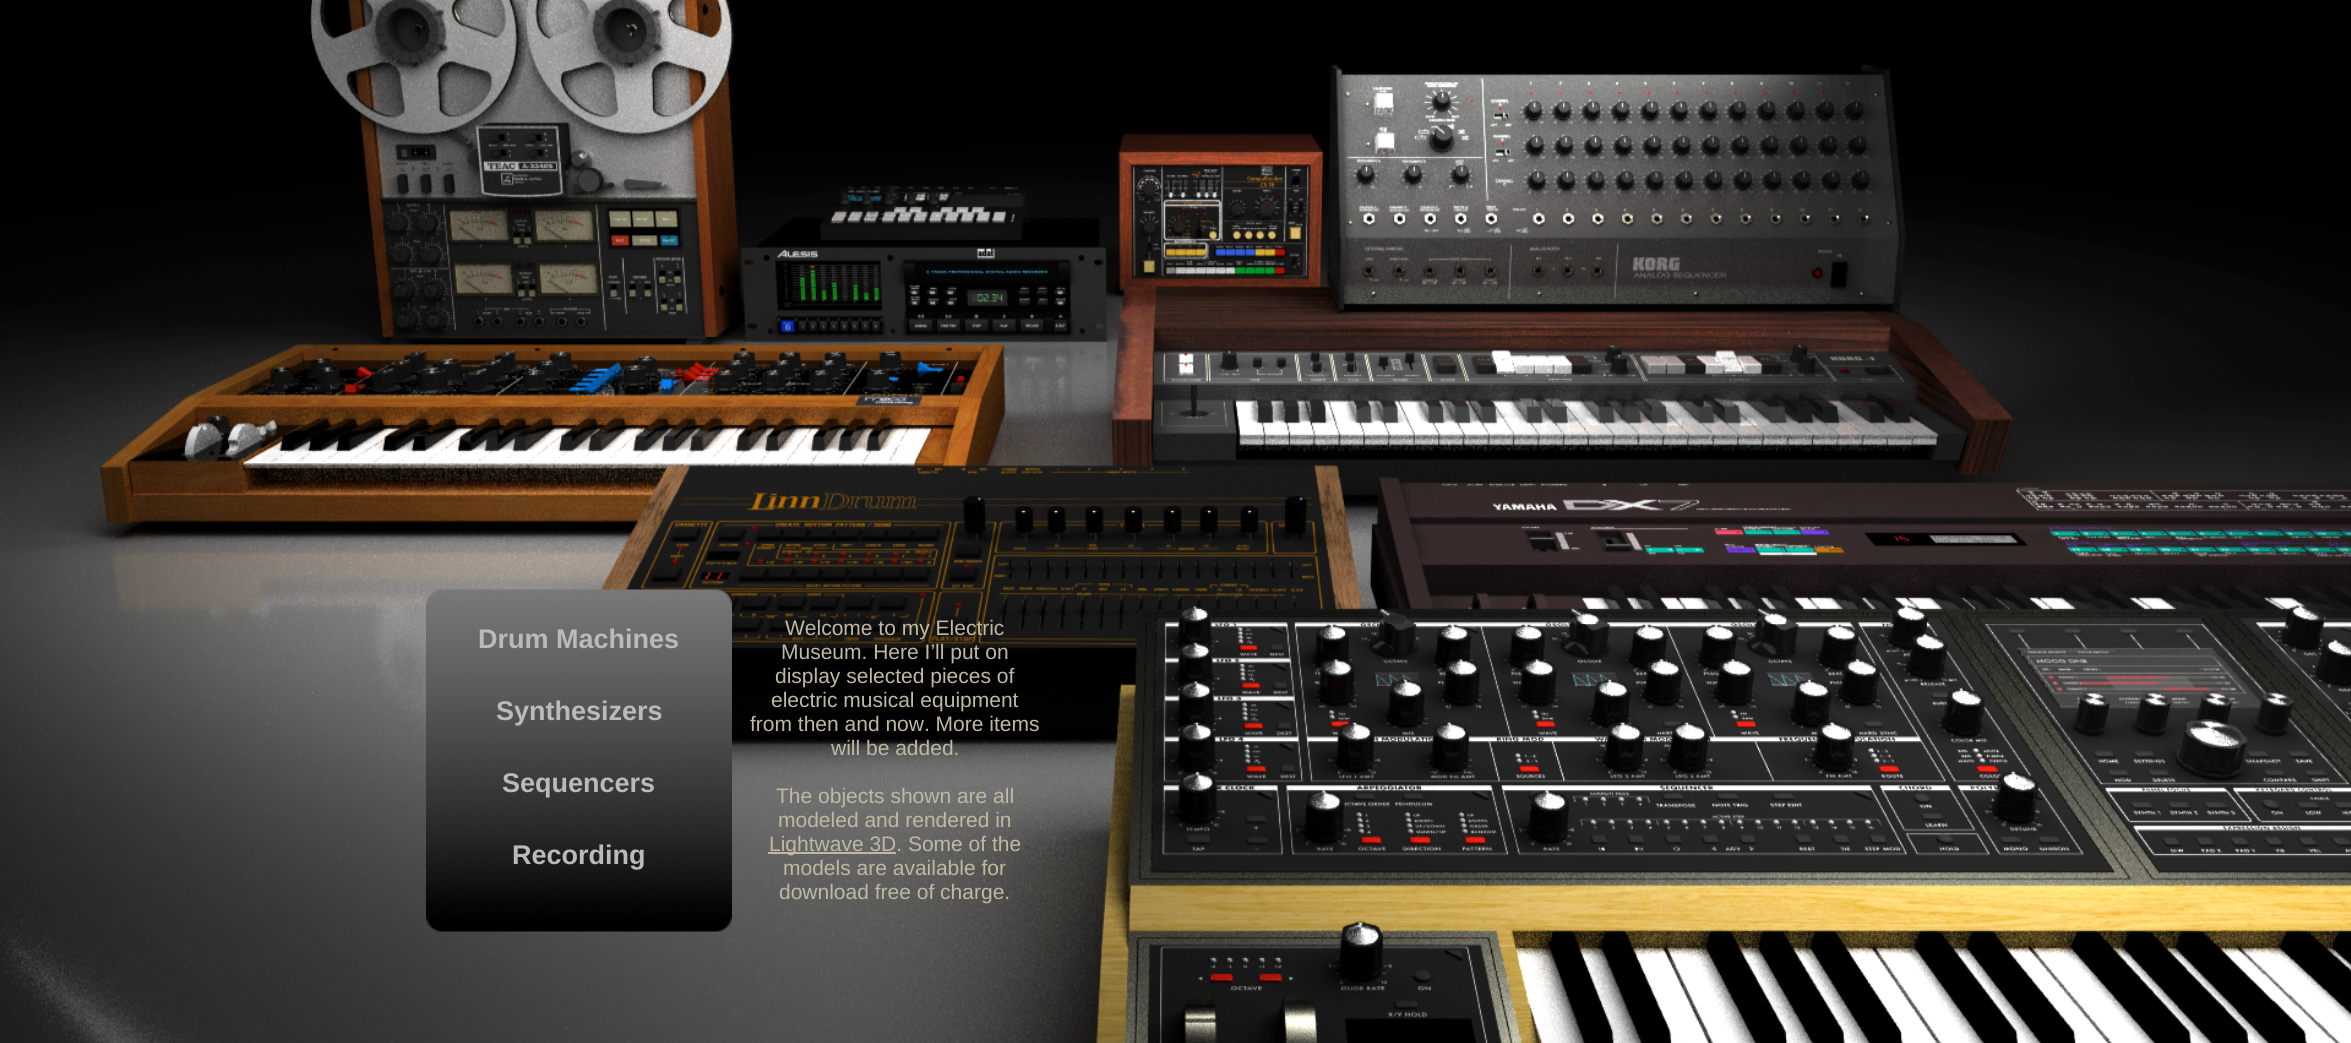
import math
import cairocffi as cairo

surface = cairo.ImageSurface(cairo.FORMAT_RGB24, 2351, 1043)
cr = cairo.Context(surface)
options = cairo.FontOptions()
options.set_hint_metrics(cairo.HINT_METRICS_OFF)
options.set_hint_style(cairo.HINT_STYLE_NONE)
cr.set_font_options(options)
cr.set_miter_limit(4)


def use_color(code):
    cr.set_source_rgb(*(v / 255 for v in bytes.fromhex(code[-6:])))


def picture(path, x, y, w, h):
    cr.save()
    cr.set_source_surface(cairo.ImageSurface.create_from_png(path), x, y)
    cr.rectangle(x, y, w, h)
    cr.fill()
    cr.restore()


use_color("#ffffff")
cr.paint()
picture("img1.png", 0, 0, 2351, 1043)
picture("img2.png", 426, 589, 306, 343)
cr.select_font_face("Liberation Sans")
cr.set_font_size(21)
use_color("#bfb9a4")
cr.move_to(785, 635)
cr.show_text("Welcome to my Electric")
cr.move_to(781, 659)
cr.show_text("Museum. Here I’ll put on")
cr.move_to(775, 683)
cr.show_text("display selected pieces of")
cr.move_to(771, 707)
cr.show_text("electric musical equipment")
cr.move_to(750, 731)
cr.show_text("from then and now. More items")
cr.move_to(831, 755)
cr.show_text("will be added.")
cr.move_to(776, 803)
cr.show_text("The objects shown are all")
cr.move_to(778, 827)
cr.show_text("modeled and rendered in")
cr.rectangle(768, 852, 128, 2)
cr.fill()
cr.move_to(769, 851)
cr.show_text("Lightwave 3D. Some of the")
cr.move_to(783, 875)
cr.show_text("models are available for")
cr.move_to(779, 899)
cr.show_text("download free of charge.")
cr.select_font_face("Liberation Sans", cairo.FONT_SLANT_NORMAL, cairo.FONT_WEIGHT_BOLD)
cr.set_font_size(27)
use_color("#bababa")
cr.move_to(478, 648)
cr.show_text("Drum Machines")
cr.move_to(496, 720)
cr.show_text("Synthesizers")
cr.move_to(502, 792)
cr.show_text("Sequencers")
cr.move_to(512, 864)
cr.show_text("Recording")
surface.write_to_png("result.png")
